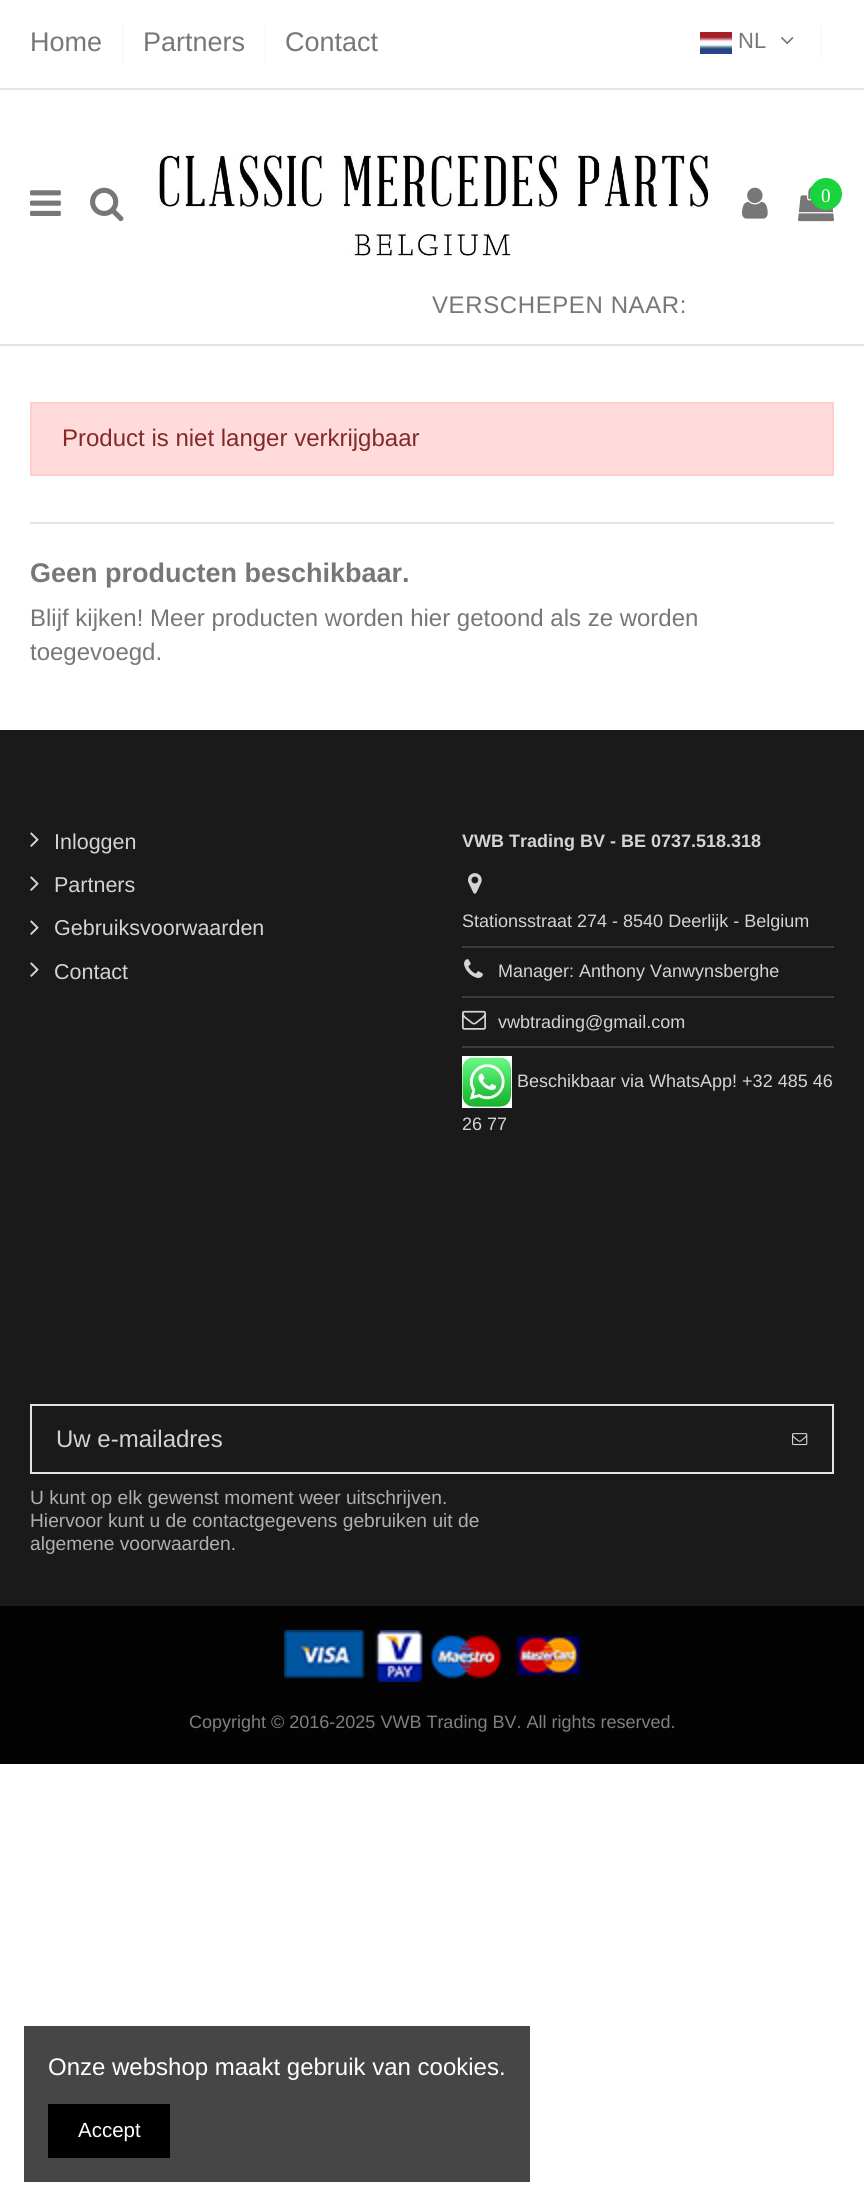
import math
import cairocffi as cairo

surface = cairo.ImageSurface(cairo.FORMAT_RGB24, 864, 2206)
cr = cairo.Context(surface)
options = cairo.FontOptions()
options.set_hint_metrics(cairo.HINT_METRICS_OFF)
options.set_hint_style(cairo.HINT_STYLE_NONE)
cr.set_font_options(options)
cr.set_miter_limit(4)


def use_color(code):
    cr.set_source_rgb(*(v / 255 for v in bytes.fromhex(code[-6:])))


def spaced_text(x, y, s, letter, word):
    cr.move_to(x, y)
    for ch in s:
        cr.show_text(ch)
        cr.rel_move_to(letter + word * (ch == ' '), 0)


def picture(path, x, y, w, h):
    cr.save()
    cr.set_source_surface(cairo.ImageSurface.create_from_png(path), x, y)
    cr.rectangle(x, y, w, h)
    cr.fill()
    cr.restore()


use_color("#ffffff")
cr.paint()
use_color("#e6e6e6")
cr.rectangle(0, 88, 864, 2)
cr.fill()
cr.select_font_face("Liberation Sans")
cr.set_font_size(27)
use_color("#777777")
cr.move_to(30, 51)
cr.show_text("Home")
use_color("#fafafa")
cr.rectangle(122, 24, 2, 40)
cr.fill()
use_color("#777777")
cr.move_to(143, 51)
cr.show_text("Partners")
use_color("#fafafa")
cr.rectangle(264, 24, 2, 40)
cr.fill()
use_color("#777777")
cr.move_to(285, 51)
cr.show_text("Contact")
picture("img1.png", 700, 32, 32, 22)
cr.set_font_size(22)
cr.move_to(738, 48)
cr.show_text("NL")
picture("img2.png", 781, 37, 13, 8)
use_color("#fafafa")
cr.rectangle(820, 26, 2, 32)
cr.fill()
use_color("#e3e3e3")
cr.rectangle(0, 344, 864, 2)
cr.fill()
picture("img3.png", 30, 190, 31, 26)
picture("img4.png", 90, 187, 34, 35)
picture("img5.png", 158, 153, 554, 104)
picture("img6.png", 742, 187, 26, 32)
picture("img7.png", 798, 185, 36, 37)
use_color("#1bd33f")
cr.arc(826, 194, 16, 0, 2 * math.pi)
cr.fill()
cr.select_font_face("Liberation Serif")
cr.set_font_size(19.2)
use_color("#ffffff")
cr.move_to(821, 202)
cr.show_text("0")
cr.select_font_face("Liberation Sans")
cr.set_font_size(24)
use_color("#777777")
spaced_text(432, 313, "VERSCHEPEN NAAR:", 0.6, 0)
use_color("#ffdbdb")
cr.rectangle(31, 403, 802, 72)
cr.fill_preserve()
use_color("#ffcdcd")
cr.stroke()
use_color("#852828")
cr.move_to(62, 446)
cr.show_text("Product is niet langer verkrijgbaar")
use_color("#e3e3e3")
cr.rectangle(30, 522, 804, 2)
cr.fill()
cr.select_font_face("Liberation Sans", cairo.FONT_SLANT_NORMAL, cairo.FONT_WEIGHT_BOLD)
cr.set_font_size(27)
use_color("#777777")
cr.move_to(30, 582)
cr.show_text("Geen producten beschikbaar.")
cr.select_font_face("Liberation Sans")
cr.set_font_size(24)
cr.move_to(30, 626)
cr.show_text("Blijf kijken! Meer producten worden hier getoond als ze worden")
cr.move_to(30, 660)
cr.show_text("toegevoegd.")
use_color("#1a1a1a")
cr.rectangle(0, 730, 864, 876)
cr.fill()
picture("img8.png", 30, 832, 9, 15)
cr.set_font_size(21.5)
use_color("#d4d4d4")
cr.move_to(54, 849)
cr.show_text("Inloggen")
picture("img8.png", 30, 876, 9, 15)
cr.move_to(54, 892)
cr.show_text("Partners")
picture("img8.png", 30, 920, 9, 15)
cr.move_to(54, 935)
cr.show_text("Gebruiksvoorwaarden")
picture("img8.png", 30, 962, 9, 15)
cr.move_to(54, 979)
cr.show_text("Contact")
cr.select_font_face("Liberation Sans", cairo.FONT_SLANT_NORMAL, cairo.FONT_WEIGHT_BOLD)
cr.set_font_size(18)
cr.move_to(462, 847)
cr.show_text("VWB Trading BV - BE 0737.518.318")
picture("img9.png", 468, 873, 14, 21)
cr.select_font_face("Liberation Sans")
cr.move_to(462, 927)
cr.show_text("Stationsstraat 274 - 8540 Deerlijk - Belgium")
use_color("#3c3c3c")
cr.rectangle(462, 946, 372, 2)
cr.fill()
picture("img10.png", 464, 959, 19, 19)
use_color("#d4d4d4")
cr.move_to(498, 977)
cr.show_text("Manager: Anthony Vanwynsberghe")
use_color("#3c3c3c")
cr.rectangle(462, 996, 372, 2)
cr.fill()
picture("img11.png", 462, 1010, 24, 20)
use_color("#d4d4d4")
cr.move_to(498, 1028)
cr.show_text("vwbtrading@gmail.com")
use_color("#3c3c3c")
cr.rectangle(462, 1046, 372, 2)
cr.fill()
picture("img12.png", 462, 1056, 50, 52)
use_color("#d4d4d4")
cr.move_to(517, 1087)
cr.show_text("Beschikbaar via WhatsApp! +32 485 46")
cr.move_to(462, 1130)
cr.show_text("26 77")
cr.rectangle(31, 1405, 802, 68)
use_color("#e3e3e3")
cr.stroke()
cr.set_font_size(24)
use_color("#d4d4d4")
cr.move_to(56, 1447)
cr.show_text("Uw e-mailadres")
picture("img13.png", 792, 1433, 16, 13)
cr.set_font_size(19.2)
use_color("#afafaf")
cr.move_to(30, 1504)
cr.show_text("U kunt op elk gewenst moment weer uitschrijven.")
cr.move_to(30, 1527)
cr.show_text("Hiervoor kunt u de contactgegevens gebruiken uit de")
cr.move_to(30, 1550)
cr.show_text("algemene voorwaarden.")
use_color("#030303")
cr.rectangle(0, 1606, 864, 158)
cr.fill()
picture("img14.png", 284, 1630, 296, 52)
cr.set_font_size(18)
use_color("#808080")
cr.move_to(189, 1728)
cr.show_text("Copyright © 2016-2025 VWB Trading BV. All rights reserved.")
use_color("#464646")
cr.rectangle(24, 2026, 506, 156)
cr.fill()
cr.set_font_size(24)
use_color("#ffffff")
cr.move_to(48, 2075)
cr.show_text("Onze webshop maakt gebruik van cookies.")
use_color("#000000")
cr.rectangle(48, 2104, 122, 54)
cr.fill()
cr.set_font_size(20.5)
use_color("#ffffff")
cr.move_to(78, 2137)
cr.show_text("Accept")
surface.write_to_png("result.png")
